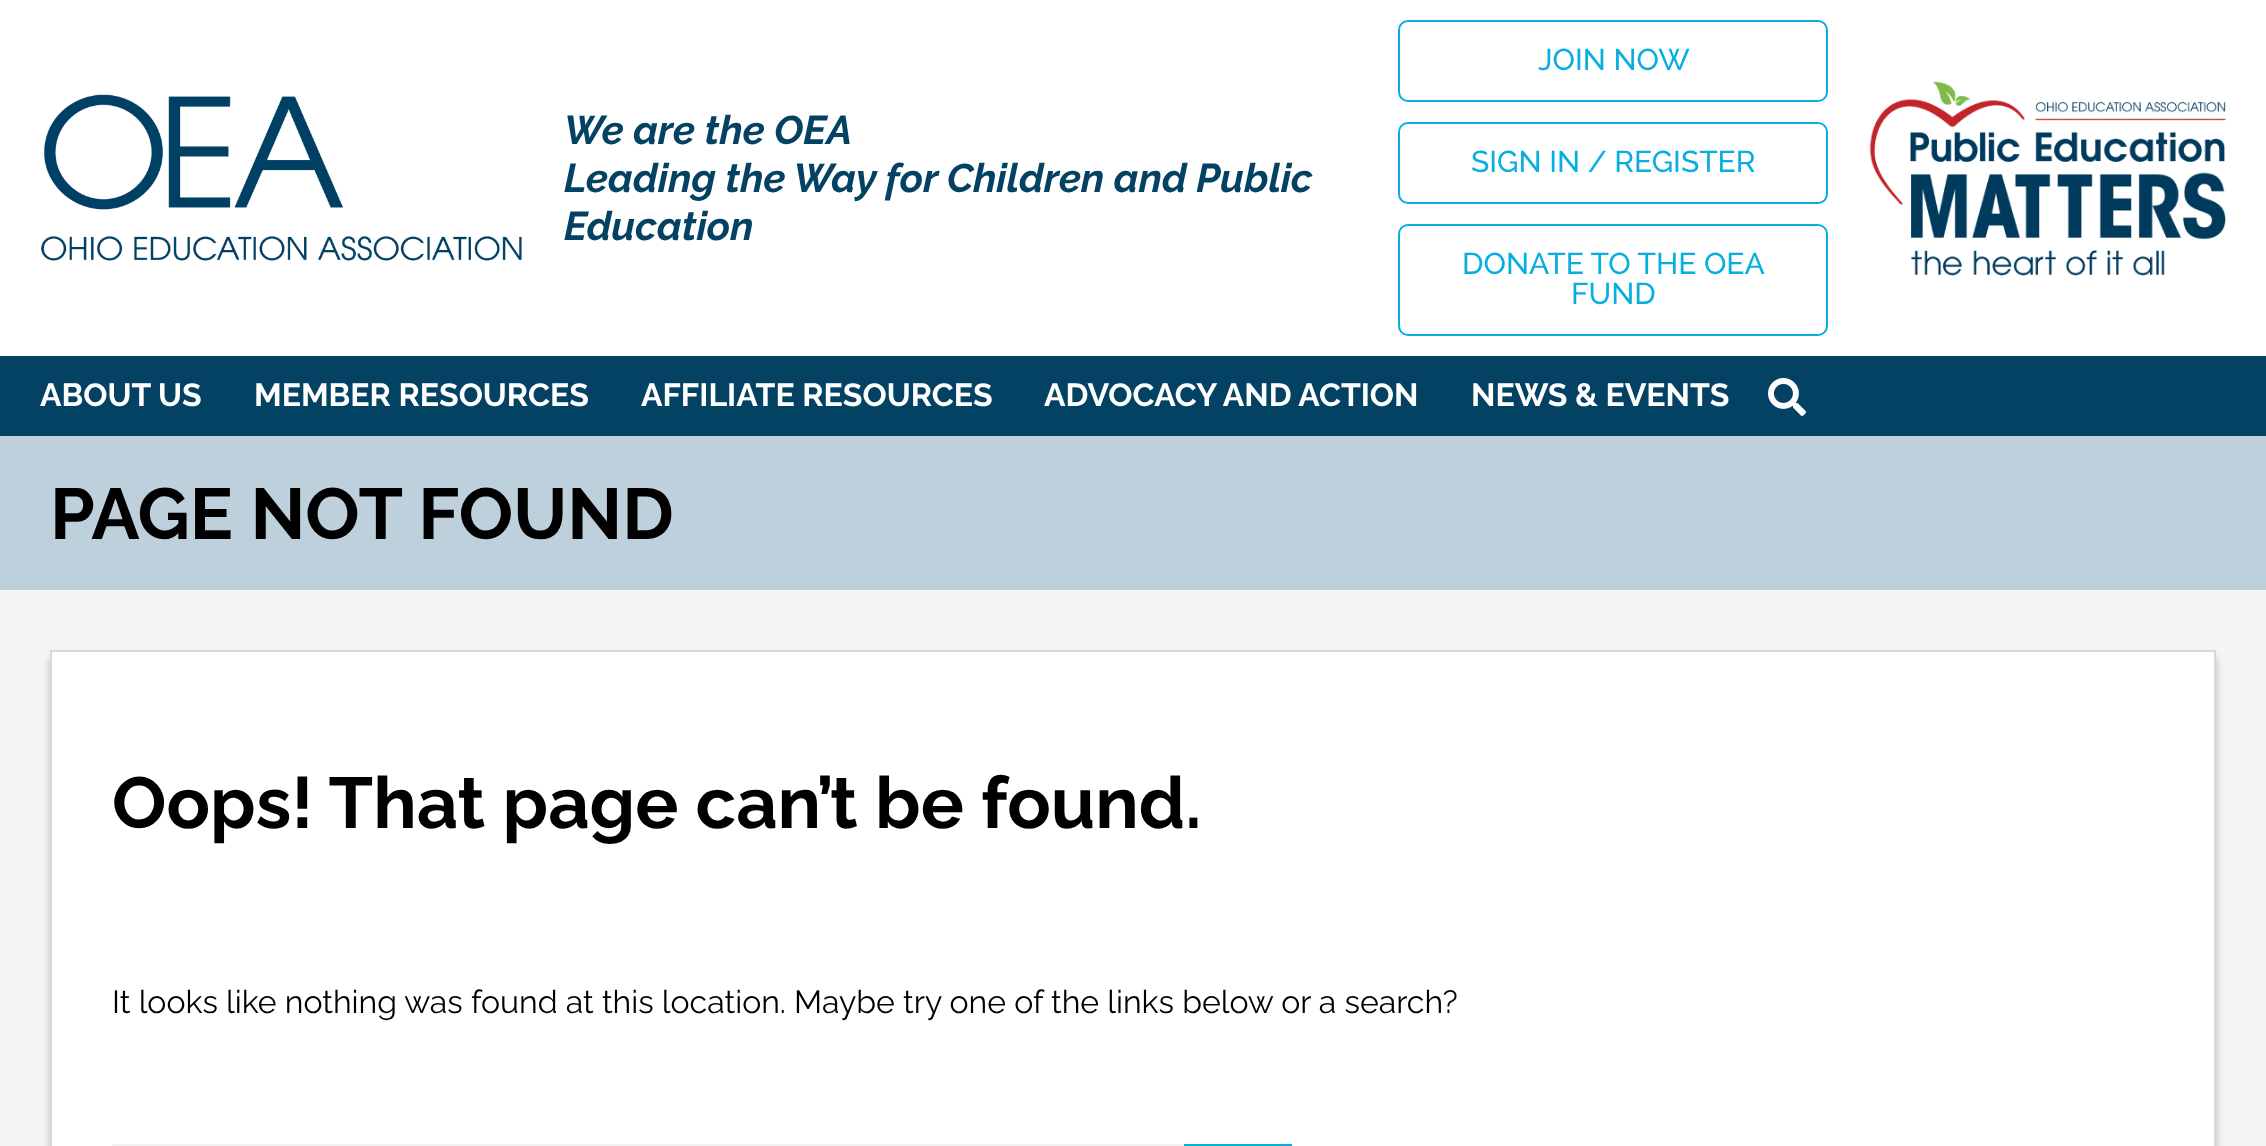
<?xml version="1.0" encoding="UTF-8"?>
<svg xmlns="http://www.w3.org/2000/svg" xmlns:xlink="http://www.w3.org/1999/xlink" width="2266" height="1146">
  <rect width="100%" height="100%" fill="#f5f5f5" />
  <rect width="2266" height="356" fill="#ffffff" />
  <image x="41" y="94" width="481" height="167" xlink:href="image1.png" />
  <rect x="1399" y="21" width="428" height="80" rx="9" fill="none" stroke="#07aedf" stroke-width="2" />
  <rect x="1399" y="123" width="428" height="80" rx="9" fill="none" stroke="#07aedf" stroke-width="2" />
  <rect x="1399" y="225" width="428" height="110" rx="9" fill="none" stroke="#07aedf" stroke-width="2" />
  <image x="1869" y="81" width="357" height="195" xlink:href="image2.png" />
  <rect y="356" width="2266" height="80" fill="#044264" />
  <image x="1768" y="378" width="38" height="38" xlink:href="image3.png" />
  <rect y="436" width="2266" height="154" fill="#bed0dc" />
  <rect x="50" y="658" width="2166" height="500" fill="#000000" fill-opacity="0.25" filter="blur(4px)" />
  <rect x="51" y="651" width="2164" height="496" fill="#ffffff" stroke="#d9d9d9" stroke-width="2" />
  <rect x="112" y="1144" width="1072" height="2" fill="#f1f2f3" />
  <rect x="1184" y="1144" width="108" height="2" fill="#07aedf" />
  <text x="564" y="144" style="font-family: Raleway; font-size: 40px; font-weight: bold; font-style: italic; fill: #044264">We are the OEA</text>
  <text x="564" y="192" style="font-family: Raleway; font-size: 40px; font-weight: bold; font-style: italic; fill: #044264">Leading the Way for Children and Public</text>
  <text x="564" y="240" style="font-family: Raleway; font-size: 40px; font-weight: bold; font-style: italic; fill: #044264">Education</text>
  <text x="1538" y="70" style="font-family: Raleway; font-size: 30px; font-weight: 500; fill: #07aedf">JOIN NOW</text>
  <text x="1471" y="172" style="font-family: Raleway; font-size: 30px; font-weight: 500; fill: #07aedf">SIGN IN / REGISTER</text>
  <text x="1462" y="274" style="font-family: Raleway; font-size: 30px; font-weight: 500; fill: #07aedf">DONATE TO THE OEA</text>
  <text x="1571" y="304" style="font-family: Raleway; font-size: 30px; font-weight: 500; fill: #07aedf">FUND</text>
  <text x="40" y="406" style="font-family: Raleway; font-size: 32px; font-weight: bold; fill: #ffffff">ABOUT US</text>
  <text x="254" y="406" style="font-family: Raleway; font-size: 32px; font-weight: bold; fill: #ffffff">MEMBER RESOURCES</text>
  <text x="641" y="406" style="font-family: Raleway; font-size: 32px; font-weight: bold; fill: #ffffff">AFFILIATE RESOURCES</text>
  <text x="1044" y="406" style="font-family: Raleway; font-size: 32px; font-weight: bold; fill: #ffffff">ADVOCACY AND ACTION</text>
  <text x="1471" y="406" style="font-family: Raleway; font-size: 32px; font-weight: bold; fill: #ffffff">NEWS &amp; EVENTS</text>
  <text x="50" y="539" style="font-family: Raleway; font-size: 72px; font-weight: bold; fill: #000000">PAGE NOT FOUND</text>
  <text x="112" y="828" style="font-family: Raleway; font-size: 72px; font-weight: bold; fill: #000000">Oops! That page can’t be found.</text>
  <text x="112" y="1013" style="font-family: Raleway; font-size: 32px; fill: #000000">It looks like nothing was found at this location. Maybe try one of the links below or a search?</text>
</svg>
